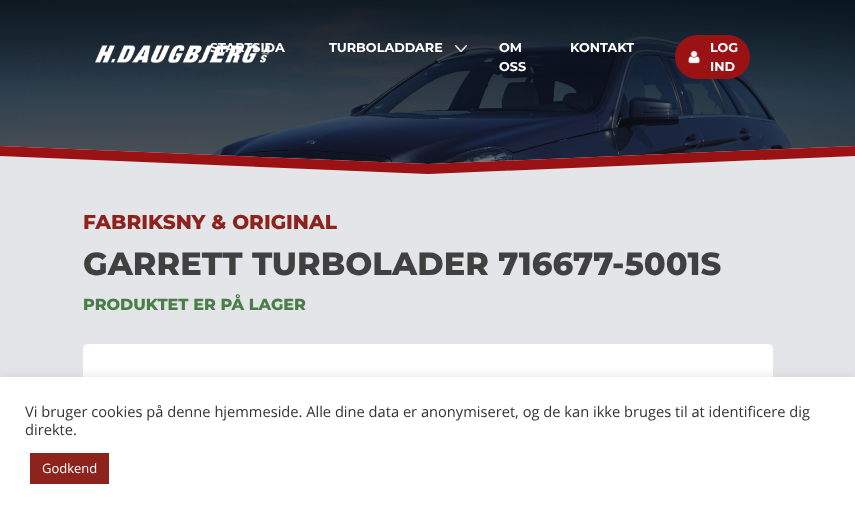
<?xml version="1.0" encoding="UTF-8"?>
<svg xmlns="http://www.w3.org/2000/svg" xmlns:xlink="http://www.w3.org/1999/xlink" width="855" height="514">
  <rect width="100%" height="100%" fill="#e4e5e9" />
  <image x="0" y="0" width="855" height="164" xlink:href="image1.png" />
  <image x="95" y="45" width="175" height="18" xlink:href="image2.png" />
  <image x="455" y="45" width="12" height="7" xlink:href="image3.png" />
  <rect x="675" y="35" width="75" height="44" rx="22" fill="#9b1215" />
  <image x="688" y="50" width="13" height="14" xlink:href="image4.png" />
  <path d="M 0 146 l 428 18 v 50 l -428 -18 z" fill="#e4e5e9" />
  <path d="M 0 146 l 428 18 v 10 l -428 -18 z" fill="#9b1215" />
  <path d="M 428 164 l 427 -18 v 50 l -427 18 z" fill="#e4e5e9" />
  <path d="M 428 164 l 427 -18 v 10 l -427 18 z" fill="#9b1215" />
  <rect x="83" y="344" width="690" height="108" rx="5" fill="#ffffff" />
  <rect y="376" width="855" height="137" fill="#acabab" fill-opacity="0.3" filter="blur(5px)" />
  <rect y="377" width="855" height="137" fill="#ffffff" />
  <rect x="30" y="453" width="79" height="31" fill="#8e231e" />
  <text x="210" y="52" style="font-family: Montserrat; font-size: 12.75px; font-weight: bold; fill: #ffffff">STARTSIDA</text>
  <text x="329" y="52" style="font-family: Montserrat; font-size: 12.75px; font-weight: bold; fill: #ffffff">TURBOLADDARE</text>
  <text x="499" y="52" style="font-family: Montserrat; font-size: 12.75px; font-weight: bold; fill: #ffffff">OM</text>
  <text x="499" y="71" style="font-family: Montserrat; font-size: 12.75px; font-weight: bold; fill: #ffffff">OSS</text>
  <text x="570" y="52" style="font-family: Montserrat; font-size: 12.75px; font-weight: bold; fill: #ffffff">KONTAKT</text>
  <text x="710" y="52" style="font-family: Montserrat; font-size: 12.75px; font-weight: bold; fill: #ffffff">LOG</text>
  <text x="710" y="71" style="font-family: Montserrat; font-size: 12.75px; font-weight: bold; fill: #ffffff">IND</text>
  <text x="83" y="229" style="font-family: Montserrat; font-size: 20px; font-weight: 800; fill: #8e231e">FABRIKSNY &amp; ORIGINAL</text>
  <text x="83" y="275" style="font-family: Montserrat; font-size: 32px; font-weight: 800; fill: #404040">GARRETT TURBOLADER 716677-5001S</text>
  <text x="83" y="310" style="font-family: Montserrat; font-size: 16px; font-weight: 800; fill: #4b7d48">PRODUKTET ER PÅ LAGER</text>
  <text x="25" y="417" style="font-family: Open Sans; font-size: 14.67px; fill: #333333">Vi bruger cookies på denne hjemmeside. Alle dine data er anonymiseret, og de kan ikke bruges til at identificere dig</text>
  <text x="25" y="435" style="font-family: Open Sans; font-size: 14.67px; fill: #333333">direkte.</text>
  <text x="42" y="473" style="font-family: Open Sans; font-size: 13px; fill: #ffffff">Godkend</text>
</svg>
